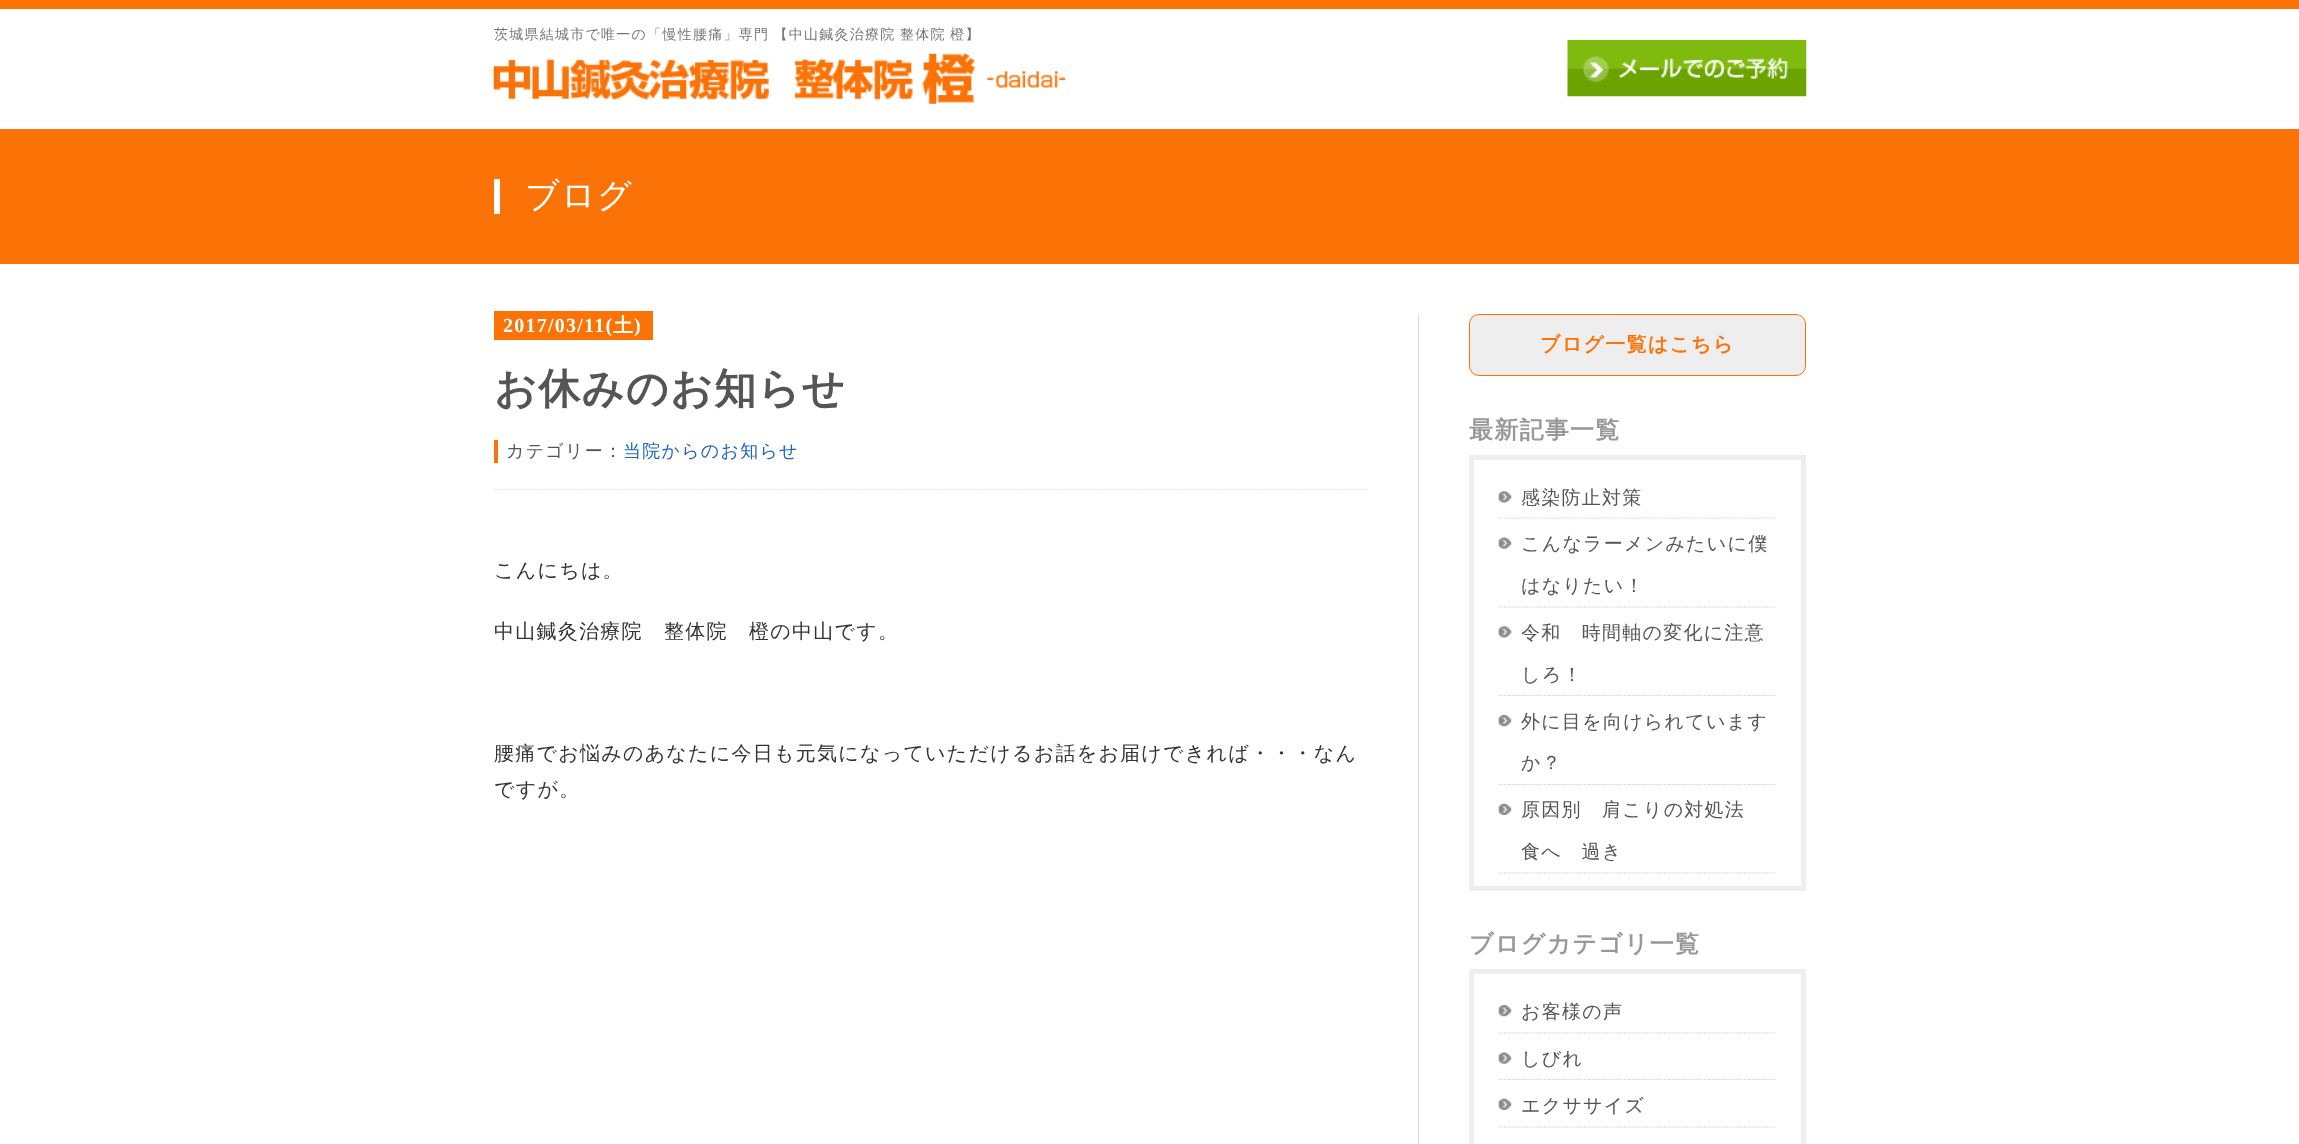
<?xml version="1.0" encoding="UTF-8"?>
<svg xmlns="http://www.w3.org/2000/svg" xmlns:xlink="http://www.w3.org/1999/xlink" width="2299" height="1144">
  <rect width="100%" height="100%" fill="#ffffff" />
  <rect width="2299" height="9" fill="#fb7207" />
  <image x="493" y="53" width="573" height="51" xlink:href="image1.png" />
  <image x="1567" y="40" width="240" height="57" xlink:href="image2.png" />
  <rect y="129" width="2299" height="135" fill="#fb7207" />
  <rect x="494" y="179" width="6" height="35" fill="#ffffff" />
  <rect x="1418" y="314" width="1" height="830" fill="#dddddd" />
  <rect x="494" y="311" width="159" height="29" fill="#fb7207" />
  <rect x="494" y="440" width="4" height="23" fill="#fb7207" />
  <path d="M 494 489.5 h 875" fill="none" stroke="#dddddd" stroke-width="1.2" stroke-dasharray="1.25 1.25" />
  <rect x="1469.5" y="314.5" width="336" height="61" rx="9.5" fill="#eeeeee" stroke="#fb7207" />
  <rect x="1471.5" y="457.5" width="332" height="431" fill="none" stroke="#eeeeee" stroke-width="5" />
  <image x="1498" y="491" width="14" height="12" xlink:href="image3.png" />
  <path d="M 1499 518 h 277" fill="none" stroke="#cccccc" stroke-width="1.2" stroke-dasharray="1.25 1.25" />
  <image x="1498" y="537" width="14" height="12" xlink:href="image4.png" />
  <path d="M 1499 607 h 277" fill="none" stroke="#cccccc" stroke-width="1.2" stroke-dasharray="1.25 1.25" />
  <image x="1498" y="626" width="14" height="12" xlink:href="image3.png" />
  <path d="M 1499 695.5 h 277" fill="none" stroke="#cccccc" stroke-width="1.2" stroke-dasharray="1.25 1.25" />
  <image x="1498" y="715" width="14" height="12" xlink:href="image5.png" />
  <path d="M 1499 784.5 h 277" fill="none" stroke="#cccccc" stroke-width="1.2" stroke-dasharray="1.25 1.25" />
  <image x="1498" y="803" width="14" height="12" xlink:href="image6.png" />
  <path d="M 1499 873 h 277" fill="none" stroke="#cccccc" stroke-width="1.2" stroke-dasharray="1.25 1.25" />
  <rect x="1471.5" y="971.5" width="332" height="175" fill="none" stroke="#eeeeee" stroke-width="5" />
  <image x="1498" y="1005" width="14" height="12" xlink:href="image5.png" />
  <path d="M 1499 1033 h 277" fill="none" stroke="#cccccc" stroke-width="1.2" stroke-dasharray="1.25 1.25" />
  <image x="1498" y="1052" width="14" height="12" xlink:href="image4.png" />
  <path d="M 1499 1079.5 h 277" fill="none" stroke="#cccccc" stroke-width="1.2" stroke-dasharray="1.25 1.25" />
  <image x="1498" y="1098" width="14" height="12" xlink:href="image6.png" />
  <path d="M 1499 1127 h 277" fill="none" stroke="#cccccc" stroke-width="1.2" stroke-dasharray="1.25 1.25" />
  <text x="494" y="39" word-spacing="-1" style="font-family: WenQuanYi Zen Hei; font-size: 14px; font-weight: 500; letter-spacing: 1.25px; fill: #777777">茨城県結城市で唯一の「慢性腰痛」専門 【中山鍼灸治療院 整体院 橙】</text>
  <text x="525" y="207" style="font-family: WenQuanYi Zen Hei; font-size: 34px; font-weight: 500; letter-spacing: 1.25px; fill: #ffffff">ブログ</text>
  <text x="503" y="332" style="font-family: Liberation Serif; font-size: 20px; font-weight: bold; letter-spacing: 1.25px; fill: #ffffff">2017/03/11(</text>
  <text x="613" y="332" style="font-family: WenQuanYi Zen Hei; font-size: 20px; font-weight: bold; letter-spacing: 1.25px; fill: #ffffff">土</text>
  <text x="634" y="332" style="font-family: Liberation Serif; font-size: 20px; font-weight: bold; letter-spacing: 1.25px; fill: #ffffff">)</text>
  <text x="494" y="403" style="font-family: WenQuanYi Zen Hei; font-size: 42px; font-weight: bold; letter-spacing: 1.25px; fill: #555555">お休みのお知らせ</text>
  <text x="506" y="457" style="font-family: WenQuanYi Zen Hei; font-size: 18px; font-weight: 500; letter-spacing: 1.25px; fill: #555555">カテゴリー：</text>
  <text x="623" y="457" style="font-family: WenQuanYi Zen Hei; font-size: 18px; font-weight: 500; letter-spacing: 1.25px; fill: #2266bb">当院からのお知らせ</text>
  <text x="494" y="577" style="font-family: WenQuanYi Zen Hei; font-size: 20px; font-weight: 500; letter-spacing: 1.25px; fill: #333333">こんにちは。</text>
  <text x="494" y="638" style="font-family: WenQuanYi Zen Hei; font-size: 20px; font-weight: 500; letter-spacing: 1.25px; fill: #333333">中山鍼灸治療院　整体院　橙の中山です。</text>
  <text x="494" y="760" style="font-family: WenQuanYi Zen Hei; font-size: 20px; font-weight: 500; letter-spacing: 1.25px; fill: #333333">腰痛でお悩みのあなたに今日も元気になっていただけるお話をお届けできれば・・・なん</text>
  <text x="494" y="796" style="font-family: WenQuanYi Zen Hei; font-size: 20px; font-weight: 500; letter-spacing: 1.25px; fill: #333333">ですが。</text>
  <text x="1540" y="351" style="font-family: WenQuanYi Zen Hei; font-size: 20px; font-weight: bold; letter-spacing: 1.25px; fill: #fb7207">ブログ一覧はこちら</text>
  <text x="1469" y="438" style="font-family: WenQuanYi Zen Hei; font-size: 24px; font-weight: bold; letter-spacing: 1.25px; fill: #999999">最新記事一覧</text>
  <text x="1521" y="504" style="font-family: WenQuanYi Zen Hei; font-size: 19px; font-weight: 500; letter-spacing: 1.25px; fill: #555555">感染防止対策</text>
  <text x="1521" y="550" style="font-family: WenQuanYi Zen Hei; font-size: 19px; font-weight: 500; letter-spacing: 1.25px; fill: #555555">こんなラーメンみたいに僕</text>
  <text x="1521" y="592" style="font-family: WenQuanYi Zen Hei; font-size: 19px; font-weight: 500; letter-spacing: 1.25px; fill: #555555">はなりたい！</text>
  <text x="1521" y="639" style="font-family: WenQuanYi Zen Hei; font-size: 19px; font-weight: 500; letter-spacing: 1.25px; fill: #555555">令和　時間軸の変化に注意</text>
  <text x="1521" y="681" style="font-family: WenQuanYi Zen Hei; font-size: 19px; font-weight: 500; letter-spacing: 1.25px; fill: #555555">しろ！</text>
  <text x="1521" y="728" style="font-family: WenQuanYi Zen Hei; font-size: 19px; font-weight: 500; letter-spacing: 1.25px; fill: #555555">外に目を向けられています</text>
  <text x="1521" y="769" style="font-family: WenQuanYi Zen Hei; font-size: 19px; font-weight: 500; letter-spacing: 1.25px; fill: #555555">か？</text>
  <text x="1521" y="816" style="font-family: WenQuanYi Zen Hei; font-size: 19px; font-weight: 500; letter-spacing: 1.25px; fill: #555555">原因別　肩こりの対処法</text>
  <text x="1521" y="858" style="font-family: WenQuanYi Zen Hei; font-size: 19px; font-weight: 500; letter-spacing: 1.25px; fill: #555555">食べ過ぎ</text>
  <text x="1469" y="952" style="font-family: WenQuanYi Zen Hei; font-size: 24px; font-weight: bold; letter-spacing: 1.25px; fill: #999999">ブログカテゴリ一覧</text>
  <text x="1521" y="1018" style="font-family: WenQuanYi Zen Hei; font-size: 19px; font-weight: 500; letter-spacing: 1.25px; fill: #555555">お客様の声</text>
  <text x="1521" y="1065" style="font-family: WenQuanYi Zen Hei; font-size: 19px; font-weight: 500; letter-spacing: 1.25px; fill: #555555">しびれ</text>
  <text x="1521" y="1112" style="font-family: WenQuanYi Zen Hei; font-size: 19px; font-weight: 500; letter-spacing: 1.25px; fill: #555555">エクササイズ</text>
</svg>
